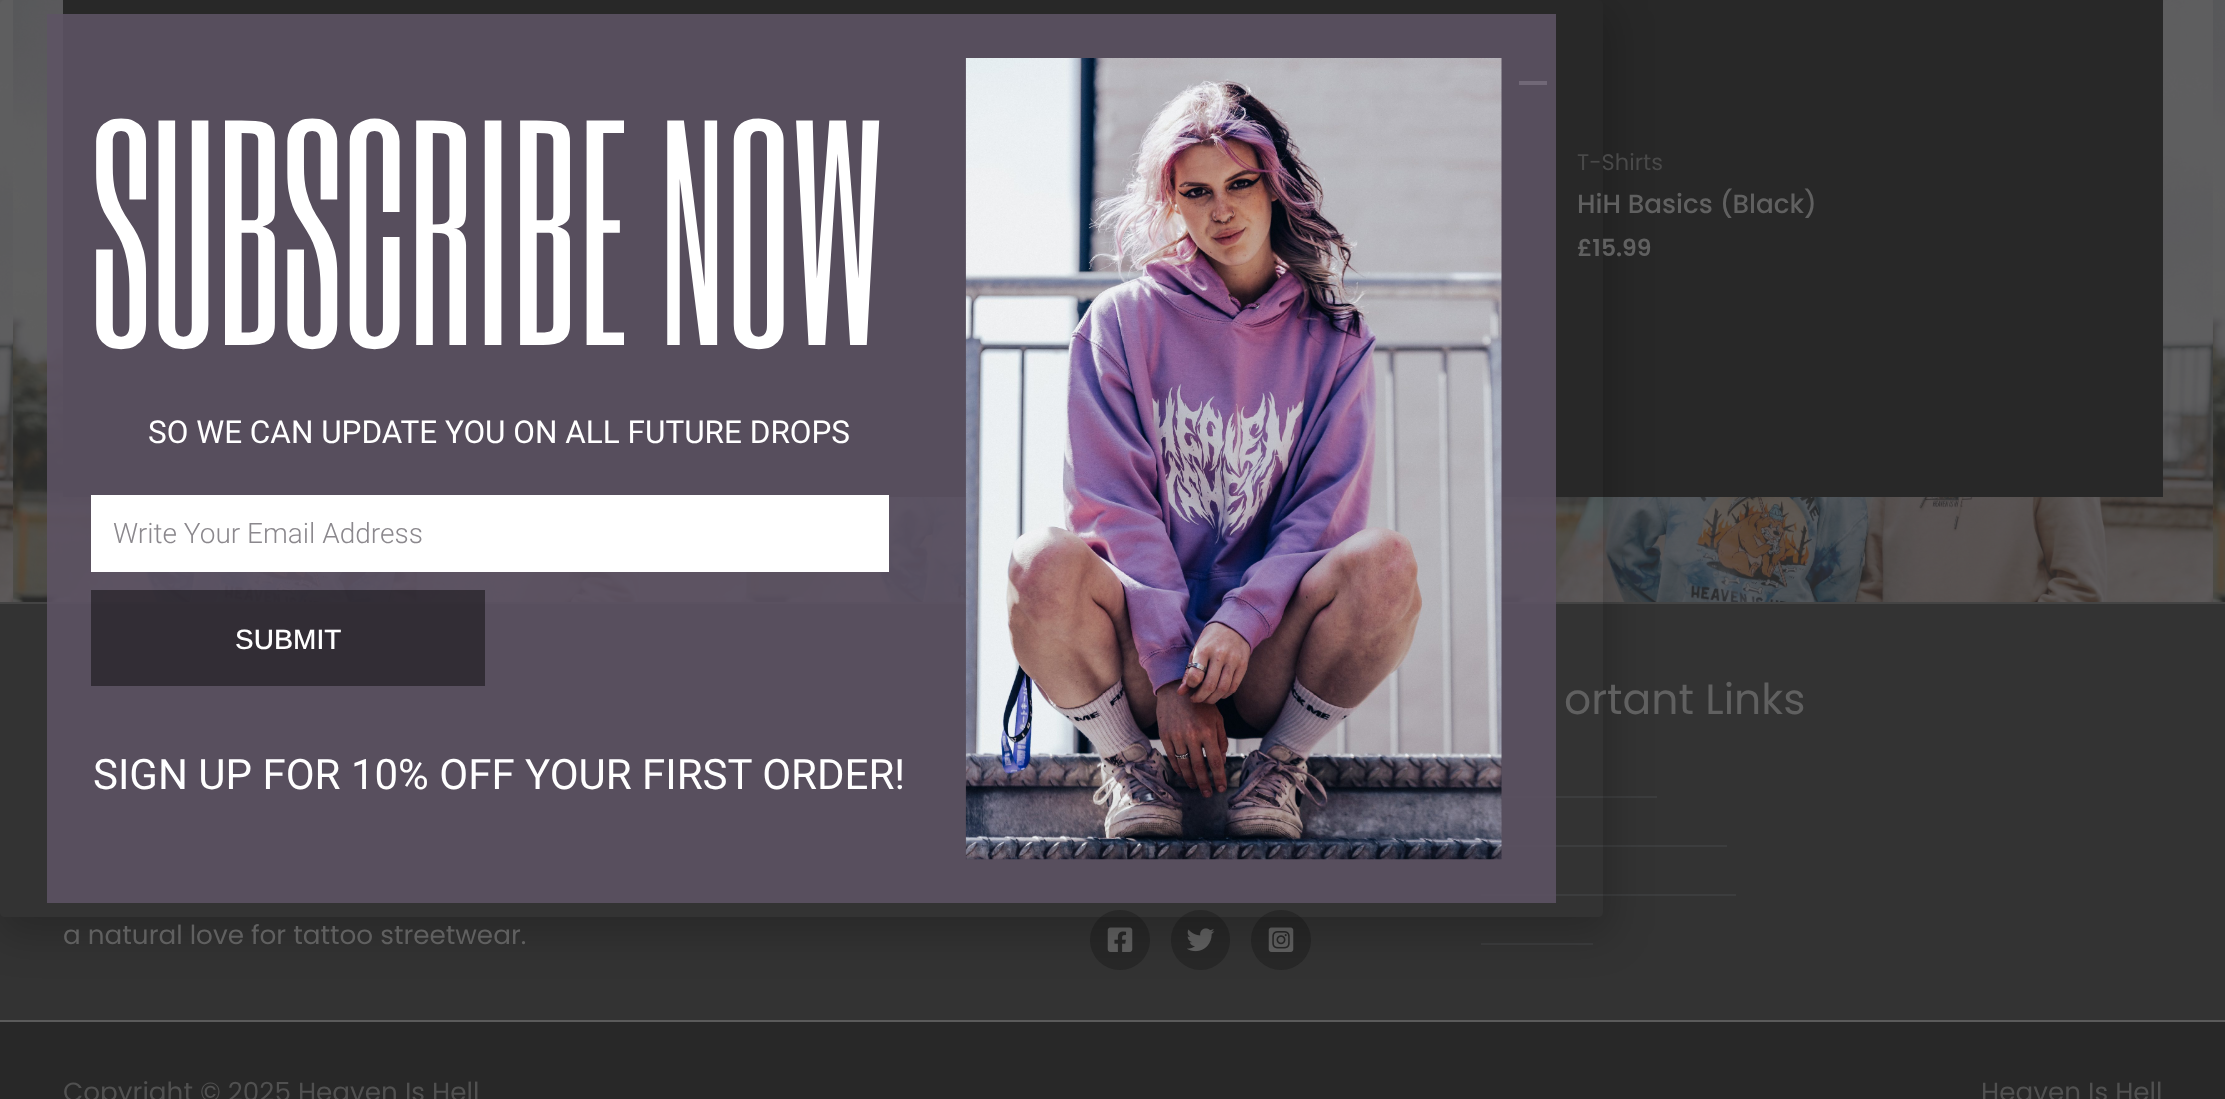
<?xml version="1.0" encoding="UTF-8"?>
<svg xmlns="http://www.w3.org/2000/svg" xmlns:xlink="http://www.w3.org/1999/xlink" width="2225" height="1099">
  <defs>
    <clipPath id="clip1"><path d="M 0 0 h 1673 v 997 h -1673 z m 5 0 h 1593 c 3 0 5 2 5 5 v 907 c 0 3 -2 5 -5 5 h -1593 c -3 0 -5 -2 -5 -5 v -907 c 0 -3 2 -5 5 -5 z" clip-rule="evenodd" /></clipPath>
  </defs>
  <rect width="100%" height="100%" fill="#ffffff" />
  <image x="0" y="0" width="2225" height="602" xlink:href="image1.png" />
  <rect x="63" width="2100" height="497" fill="#282828" />
  <rect y="604" width="2225" height="416" fill="#333333" />
  <rect y="602" width="2225" height="2" fill="#444444" />
  <rect x="1501" y="796" width="156" height="2" fill="#3c3d3e" />
  <rect x="1501" y="845" width="226" height="2" fill="#3c3d3e" />
  <rect x="1481" y="894" width="255" height="2" fill="#3c3d3e" />
  <rect x="1481" y="943" width="112" height="2" fill="#3c3d3e" />
  <circle cx="1120" cy="940" r="30" fill="#282828" />
  <image x="1107" y="927" width="26" height="25" xlink:href="image3.png" />
  <rect x="1171" y="910" width="59" height="60" rx="29.5" fill="#282828" />
  <image x="1187" y="928" width="28" height="24" xlink:href="image4.png" />
  <circle cx="1281" cy="940" r="30" fill="#282828" />
  <image x="1268" y="927" width="26" height="25" xlink:href="image5.png" />
  <g clip-path="url(#clip1)">
    <rect x="-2" y="9" width="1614" height="927" rx="11" fill="#000000" fill-opacity="0.2" filter="blur(20px)" />
  </g>
  <rect x="1519" y="81" width="28" height="4" fill="#ffffff" />
  <rect x="47" y="14" width="1509" height="889" fill="#5d5364" fill-opacity="0.88" />
  <rect x="91" y="495" width="798" height="77" fill="#ffffff" />
  <rect x="91" y="590" width="394" height="96" fill="#000000" fill-opacity="0.43" />
  <image x="965" y="58" width="537" height="802" xlink:href="image2.png" />
  <rect y="1022" width="2225" height="77" fill="#282828" />
  <rect y="1020" width="2225" height="2" fill="#5b5b5b" />
  <text x="92" y="345" style="font-family: Six Caps; font-size: 266px; fill: #ffffff">SUBSCRIBE NOW</text>
  <text x="148" y="443" style="font-family: Roboto; font-size: 31.5px; fill: #ffffff">SO WE CAN UPDATE YOU ON ALL FUTURE DROPS</text>
  <text x="113" y="543" style="font-family: Roboto; font-size: 28px; font-weight: 300; fill: #8b888d">Write Your Email Address</text>
  <text x="235" y="649" style="font-family: Arimo; font-size: 28px; font-weight: 500; fill: #ffffff">SUBMIT</text>
  <text x="93" y="789" style="font-family: Roboto; font-size: 42px; fill: #ffffff">SIGN UP FOR 10% OFF YOUR FIRST ORDER!</text>
  <text x="1577" y="170" style="font-family: Poppins; font-size: 22.5px; fill: #494949">T-Shirts</text>
  <text x="1577" y="213" style="font-family: Poppins; font-size: 26.25px; font-weight: 500; fill: #606060">HiH Basics (Black)</text>
  <text x="1577" y="256" style="font-family: Poppins; font-size: 23.5px; font-weight: 600; fill: #606060">£15.99</text>
  <text x="1564" y="714" style="font-family: Poppins; font-size: 42.5px; fill: #606060">ortant Links</text>
  <text x="63" y="944" style="font-family: Poppins; font-size: 26.25px; fill: #606060">a natural love for tattoo streetwear.</text>
  <text x="63" y="1101" style="font-family: Poppins; font-size: 26.25px; fill: #505050">Copyright © 2025 Heaven Is Hell</text>
  <text x="1981" y="1101" style="font-family: Poppins; font-size: 26.25px; fill: #505050">Heaven Is Hell</text>
</svg>
